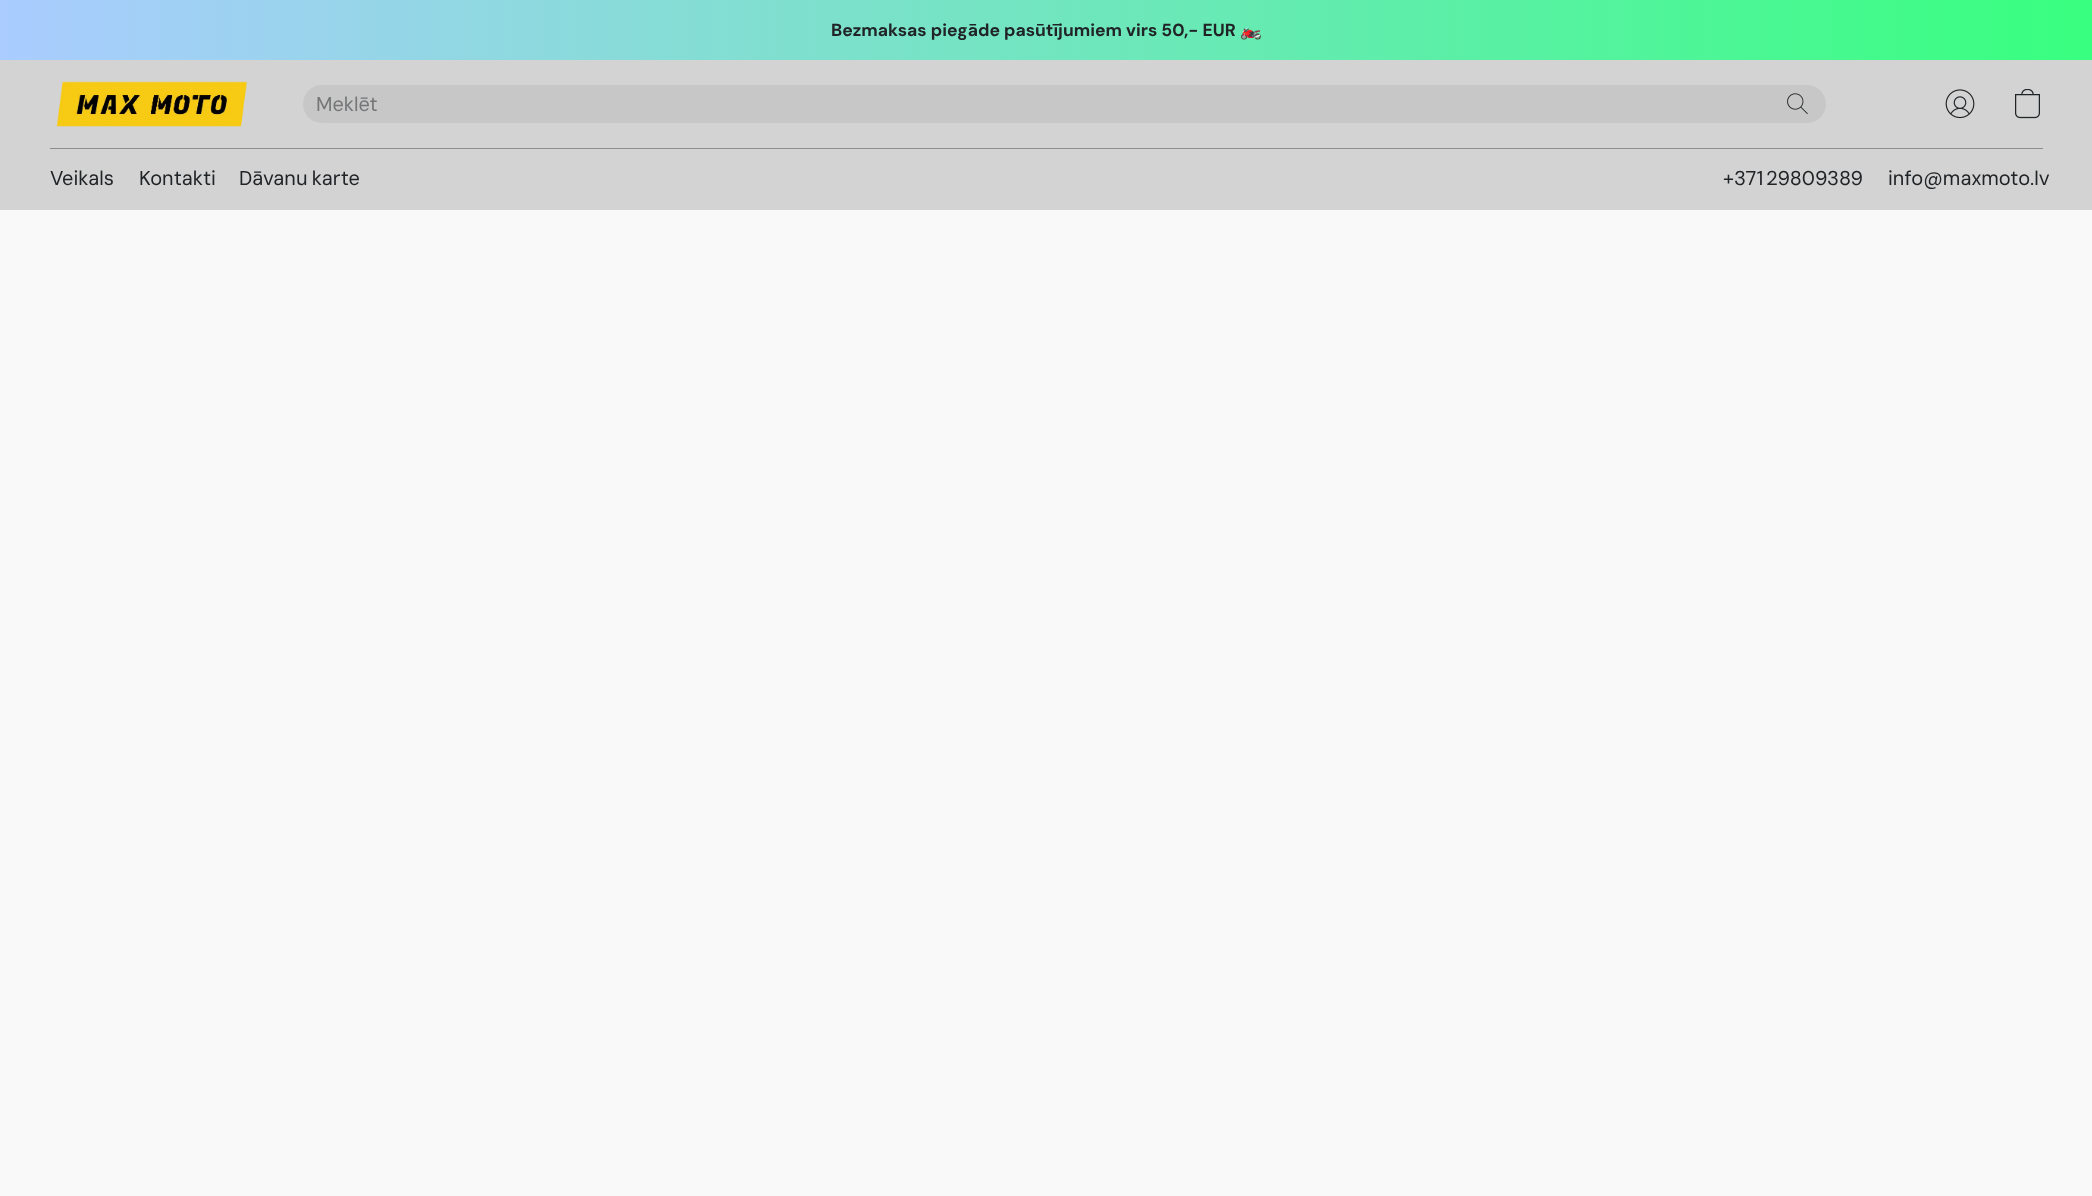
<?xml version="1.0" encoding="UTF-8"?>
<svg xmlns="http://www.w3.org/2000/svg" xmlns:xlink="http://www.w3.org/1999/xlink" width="2092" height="1196">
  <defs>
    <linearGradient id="g1" gradientUnits="userSpaceOnUse" x1="0" y1="30" x2="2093" y2="30"><stop offset="0" stop-color="#aaccff" /><stop offset="1" stop-color="#38ff7f" /></linearGradient>
  </defs>
  <rect width="100%" height="100%" fill="#f9f9f9" />
  <rect width="2092" height="60" fill="url(#g1)" />
  <rect y="60" width="2092" height="150" fill="#d3d3d3" />
  <image x="56" y="81" width="192" height="46" xlink:href="image1.png" />
  <rect x="303" y="85" width="1523" height="38" rx="19" fill="#c7c7c7" />
  <image x="1787" y="93" width="21" height="22" xlink:href="image2.png" />
  <image x="1945" y="89" width="30" height="30" xlink:href="image3.png" />
  <image x="2015" y="89" width="25" height="30" xlink:href="image4.png" />
  <rect x="50" y="148" width="1993" height="1" fill="#8c8d8e" />
  <text x="831" y="36" style="font-family: DM Sans; font-size: 17.5px; font-weight: bold; fill: #212427">Bezmaksas piegāde pasūtījumiem virs 50,- EUR</text>
  <text x="1240" y="36" style="font-family: Noto Color Emoji; font-size: 17.5px; font-weight: bold; fill: #212427">🏍️</text>
  <text x="316" y="111" style="font-family: DM Sans; font-size: 20px; fill: #747677">Meklēt</text>
  <text x="50" y="185" style="font-family: DM Sans; font-size: 20px; fill: #212427">Veikals</text>
  <text x="139" y="185" style="font-family: DM Sans; font-size: 20px; fill: #212427">Kontakti</text>
  <text x="239" y="185" word-spacing="-1" style="font-family: DM Sans; font-size: 20px; fill: #212427">Dāvanu karte</text>
  <text x="1723" y="185" style="font-family: DM Sans; font-size: 20px; fill: #212427">+371 29809389</text>
  <text x="1888" y="185" style="font-family: DM Sans; font-size: 20px; fill: #212427">info@maxmoto.lv</text>
</svg>
